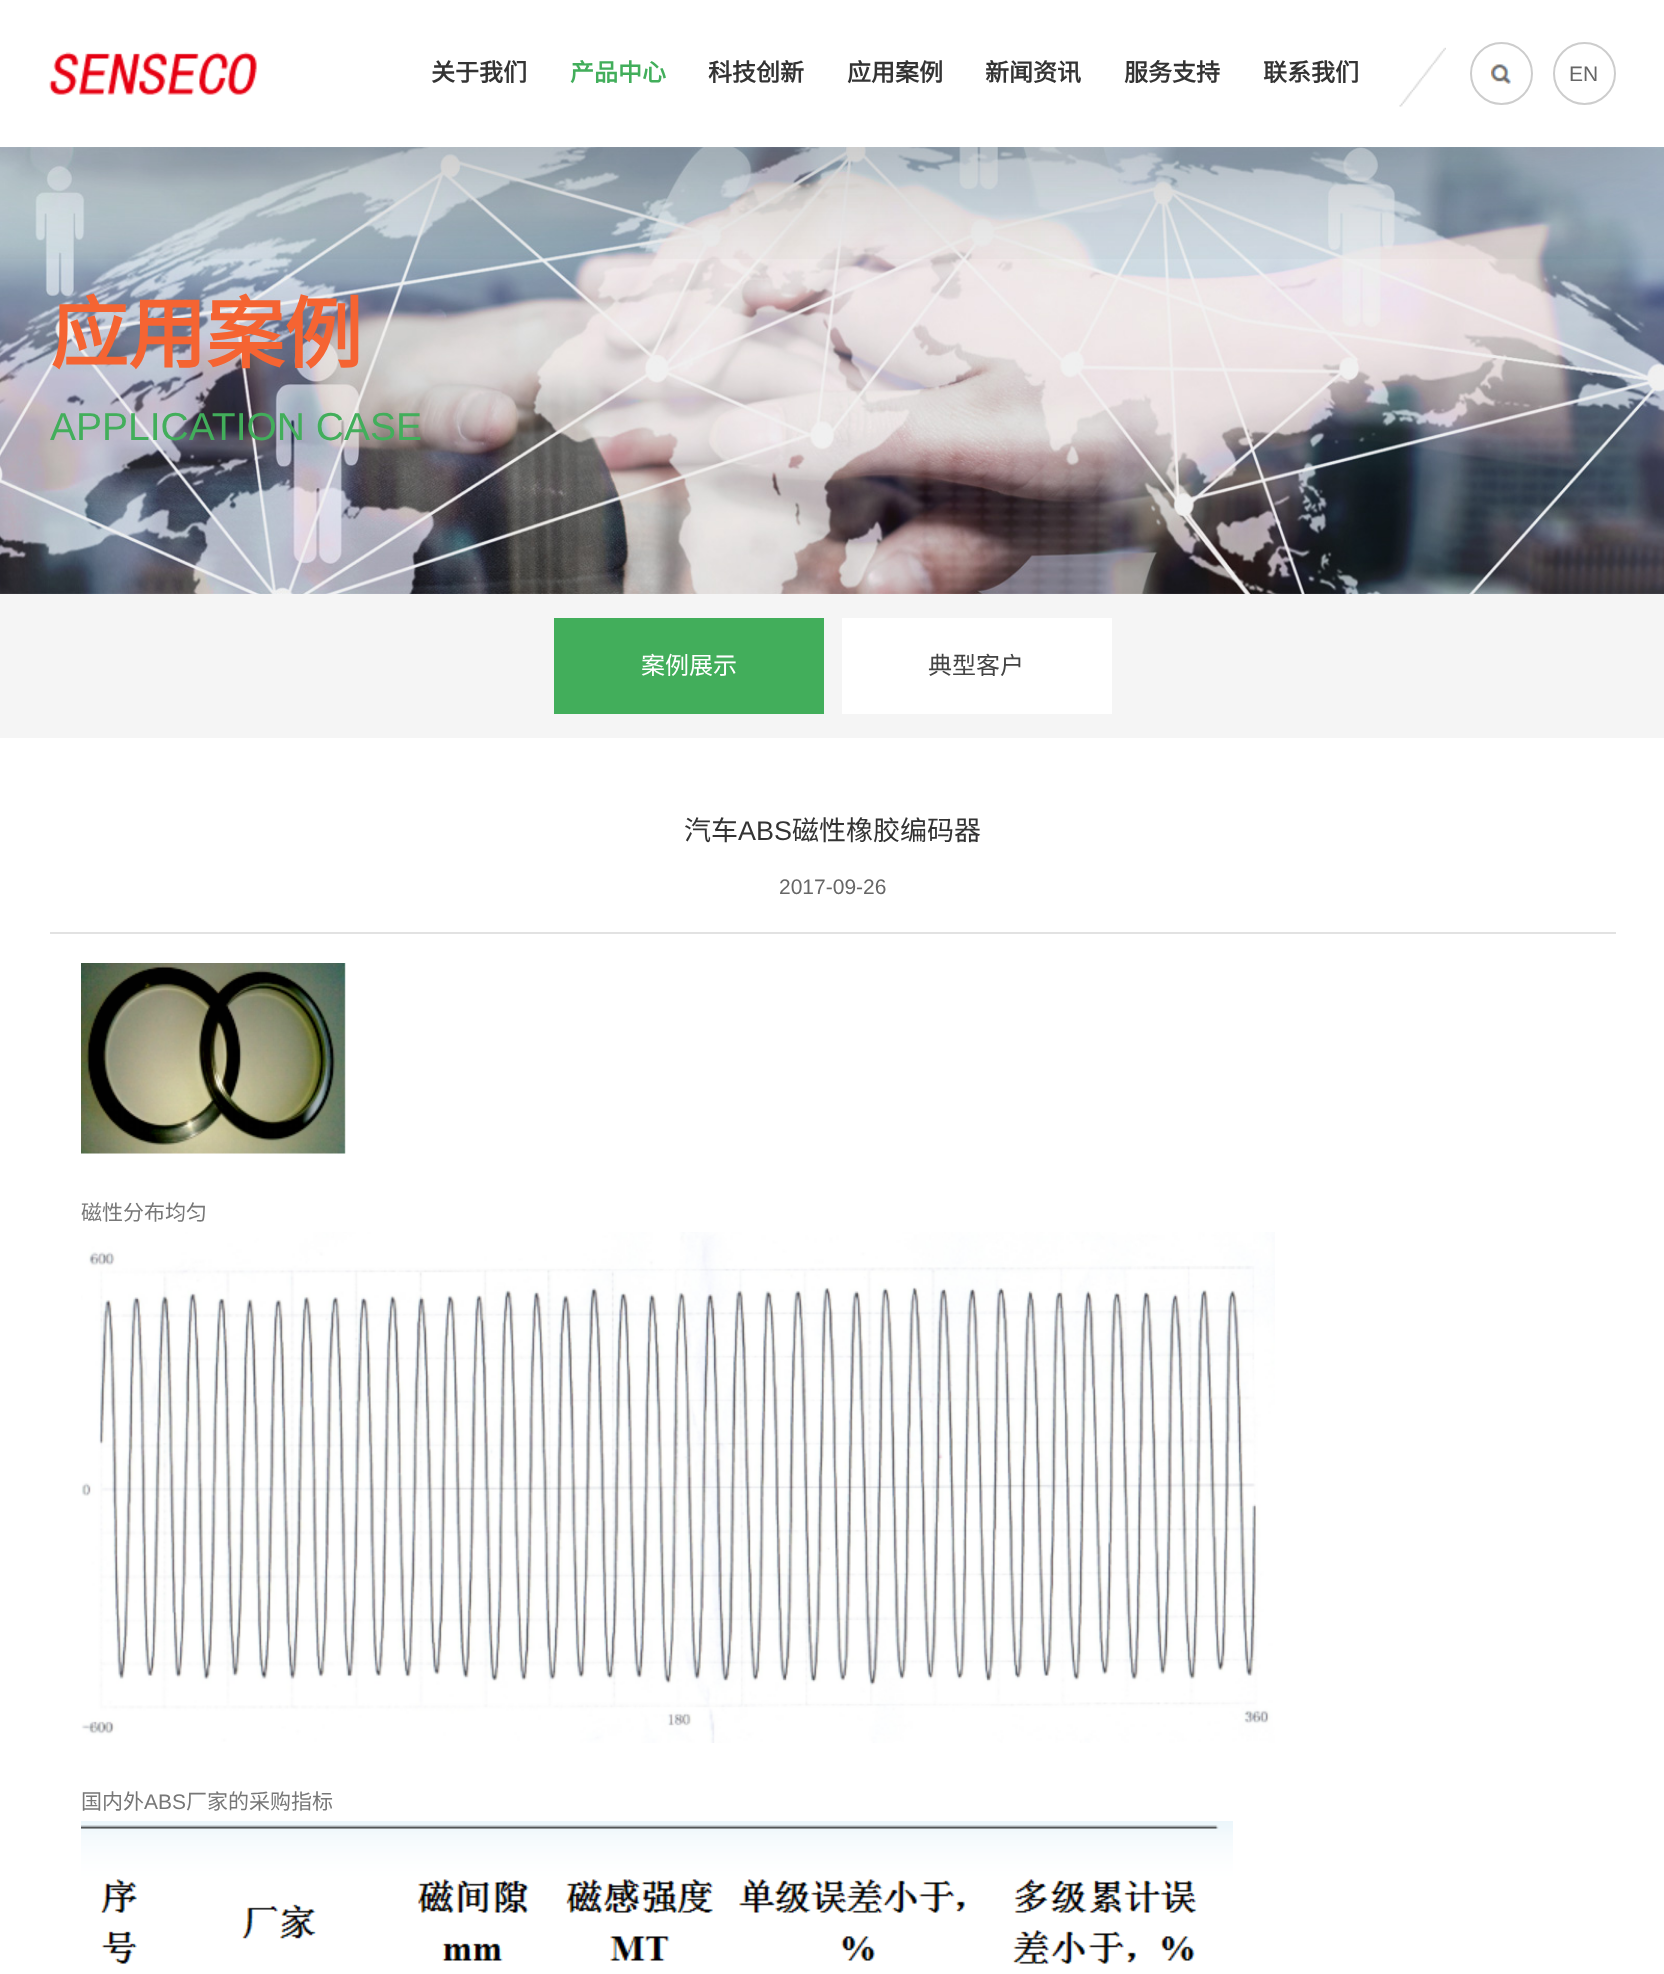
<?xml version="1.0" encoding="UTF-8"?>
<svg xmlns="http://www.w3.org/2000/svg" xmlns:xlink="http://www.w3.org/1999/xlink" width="1664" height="1974">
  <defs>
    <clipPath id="clip1"><rect x="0" y="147" width="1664" height="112" /></clipPath>
  </defs>
  <rect width="100%" height="100%" fill="#ffffff" />
  <image x="0" y="147" width="1664" height="447" xlink:href="image4.png" />
  <g clip-path="url(#clip1)">
    <rect width="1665" height="147" fill="#000000" fill-opacity="0.3" filter="blur(75px)" />
  </g>
  <image x="49" y="52" width="208" height="43" xlink:href="image1.png" />
  <image x="1399" y="47" width="47" height="60" xlink:href="image2.png" />
  <circle cx="1501.5" cy="73.5" r="30.5" fill="none" stroke="#cdcdcd" stroke-width="2" />
  <image x="1491" y="64" width="20" height="20" xlink:href="image3.png" />
  <circle cx="1584.5" cy="73.5" r="30.5" fill="none" stroke="#cdcdcd" stroke-width="2" />
  <rect y="594" width="1664" height="144" fill="#f5f5f5" />
  <rect x="554" y="618" width="270" height="96" fill="#42ae5b" />
  <rect x="842" y="618" width="270" height="96" fill="#ffffff" />
  <rect x="50" y="932" width="1566" height="2" fill="#e2e2e2" />
  <image x="81" y="963" width="265" height="191" xlink:href="image5.png" />
  <image x="81" y="1232" width="1194" height="511" xlink:href="image6.png" />
  <image x="81" y="1821" width="1152" height="143" xlink:href="image7.png" />
  <text x="431" y="81" style="font-family: Noto Sans CJK SC; font-size: 24px; font-weight: bold; fill: #333333">关于我们</text>
  <text x="570" y="81" style="font-family: Noto Sans CJK SC; font-size: 24px; font-weight: bold; fill: #42ae5b">产品中心</text>
  <text x="708" y="81" style="font-family: Noto Sans CJK SC; font-size: 24px; font-weight: bold; fill: #333333">科技创新</text>
  <text x="847" y="81" style="font-family: Noto Sans CJK SC; font-size: 24px; font-weight: bold; fill: #333333">应用案例</text>
  <text x="985" y="81" style="font-family: Noto Sans CJK SC; font-size: 24px; font-weight: bold; fill: #333333">新闻资讯</text>
  <text x="1124" y="81" style="font-family: Noto Sans CJK SC; font-size: 24px; font-weight: bold; fill: #333333">服务支持</text>
  <text x="1263" y="81" style="font-family: Noto Sans CJK SC; font-size: 24px; font-weight: bold; fill: #333333">联系我们</text>
  <text x="1569" y="81" style="font-family: Liberation Sans; font-size: 21px; fill: #666666">EN</text>
  <text x="50" y="362" style="font-family: Noto Sans CJK SC; font-size: 78px; font-weight: bold; fill: #f56432">应用案例</text>
  <text x="50" y="440" style="font-family: Liberation Sans; font-size: 39px; fill: #42ae5b">APPLICATION CASE</text>
  <text x="641" y="674" style="font-family: Noto Sans CJK SC; font-size: 24px; fill: #ffffff">案例展示</text>
  <text x="928" y="674" style="font-family: Noto Sans CJK SC; font-size: 24px; fill: #444444">典型客户</text>
  <text x="684" y="840" style="font-family: Noto Sans CJK SC; font-size: 27px; fill: #333333">汽车</text>
  <text x="738" y="840" style="font-family: Liberation Sans; font-size: 27px; fill: #333333">ABS</text>
  <text x="792" y="840" style="font-family: Noto Sans CJK SC; font-size: 27px; fill: #333333">磁性橡胶编码器</text>
  <text x="779" y="894" style="font-family: Liberation Sans; font-size: 21px; fill: #666666">2017-09-26</text>
  <text x="81" y="1220" style="font-family: Noto Sans CJK SC; font-size: 21px; fill: #777777">磁性分布均匀</text>
  <text x="81" y="1809" style="font-family: Noto Sans CJK SC; font-size: 21px; fill: #777777">国内外</text>
  <text x="144" y="1809" style="font-family: Liberation Sans; font-size: 21px; fill: #777777">ABS</text>
  <text x="186" y="1809" style="font-family: Noto Sans CJK SC; font-size: 21px; fill: #777777">厂家的采购指标</text>
</svg>
